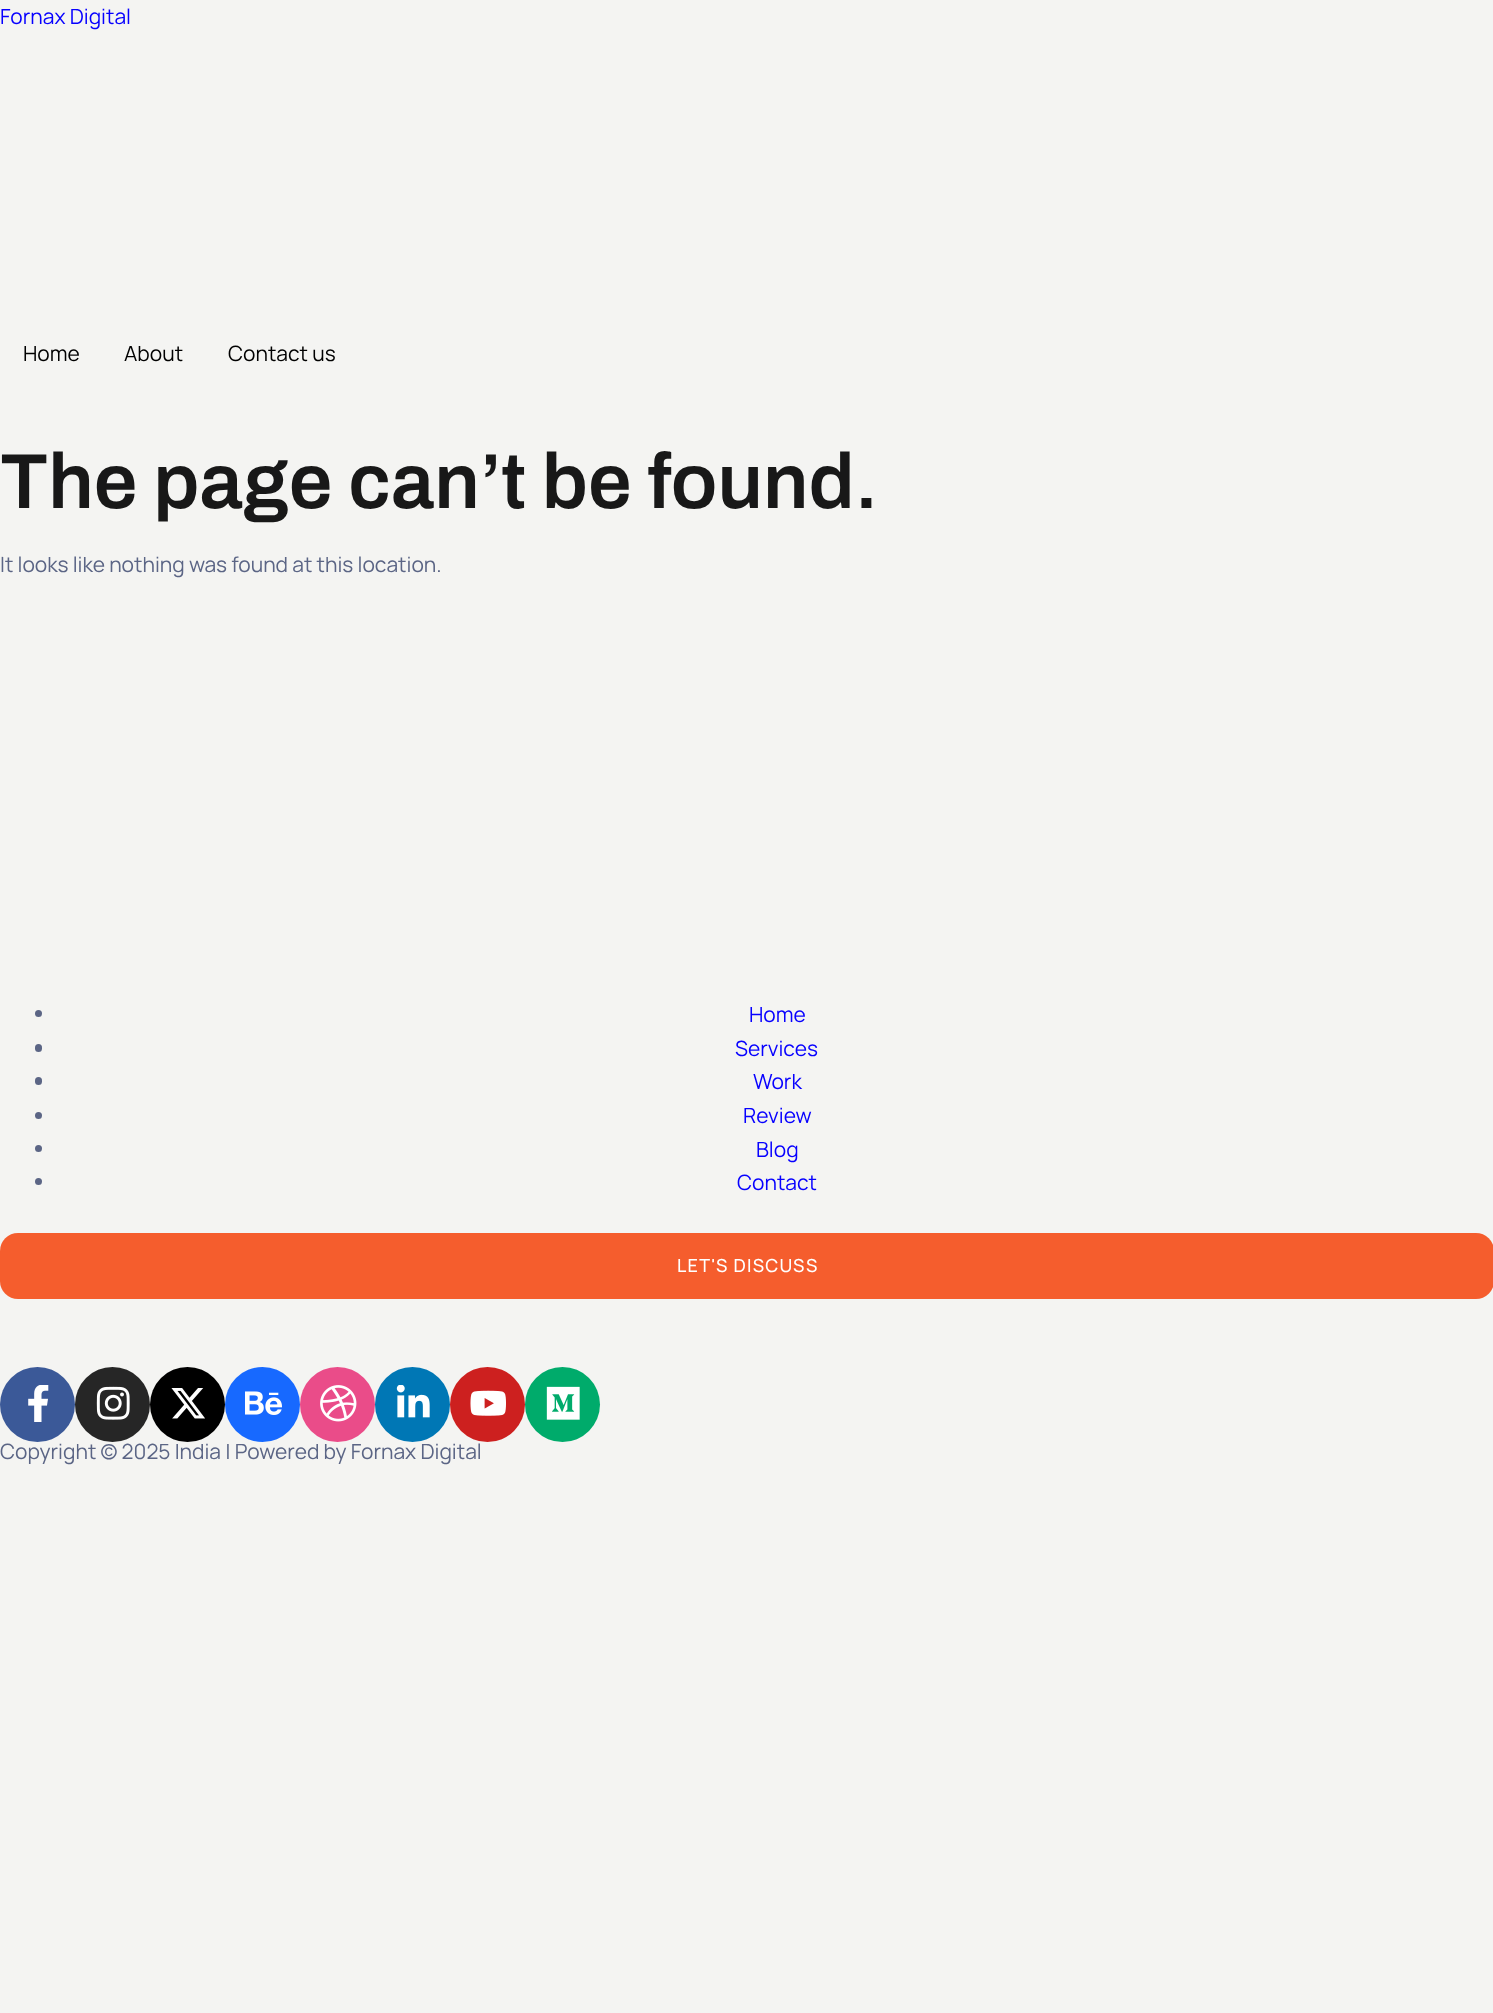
<?xml version="1.0" encoding="UTF-8"?>
<svg xmlns="http://www.w3.org/2000/svg" xmlns:xlink="http://www.w3.org/1999/xlink" width="1493" height="2013">
  <rect width="100%" height="100%" fill="#f4f4f2" />
  <circle cx="38.5" cy="1013.5" r="3.5" fill="#5b6585" />
  <rect x="35" y="1044" width="7" height="8" rx="3.5" fill="#5b6585" />
  <rect x="35" y="1077" width="7" height="8" rx="3.5" fill="#5b6585" />
  <circle cx="38.5" cy="1115.5" r="3.5" fill="#5b6585" />
  <circle cx="38.5" cy="1148.5" r="3.5" fill="#5b6585" />
  <circle cx="38.5" cy="1181.5" r="3.5" fill="#5b6585" />
  <rect y="1233" width="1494" height="66" rx="18" fill="#f55d2d" />
  <circle cx="37.5" cy="1404.5" r="37.5" fill="#3b5998" />
  <image x="28" y="1385" width="21" height="37" xlink:href="image1.png" />
  <circle cx="112.5" cy="1404.5" r="37.5" fill="#262626" />
  <image x="96" y="1386" width="34" height="34" xlink:href="image2.png" />
  <circle cx="187.5" cy="1404.5" r="37.5" fill="#000000" />
  <image x="171" y="1388" width="34" height="31" xlink:href="image3.png" />
  <circle cx="262.5" cy="1404.5" r="37.5" fill="#1769ff" />
  <image x="245" y="1391" width="37" height="24" xlink:href="image4.png" />
  <circle cx="337.5" cy="1404.5" r="37.5" fill="#ea4c89" />
  <image x="320" y="1385" width="37" height="37" xlink:href="image5.png" />
  <circle cx="412.5" cy="1404.5" r="37.5" fill="#0077b5" />
  <image x="396" y="1385" width="34" height="33" xlink:href="image6.png" />
  <circle cx="487.5" cy="1404.5" r="37.5" fill="#cd201f" />
  <image x="470" y="1390" width="36" height="26" xlink:href="image7.png" />
  <circle cx="562.5" cy="1404.5" r="37.5" fill="#00ab6b" />
  <image x="546" y="1386" width="34" height="34" xlink:href="image8.png" />
  <text x="0" y="24" style="font-family: Manrope; font-size: 21px; fill: #0700ff">Fornax Digital</text>
  <text x="23" y="361" style="font-family: Manrope; font-size: 21px; fill: #000000">Home</text>
  <text x="124" y="361" style="font-family: Manrope; font-size: 21px; fill: #000000">About</text>
  <text x="228" y="361" style="font-family: Manrope; font-size: 21px; fill: #000000">Contact us</text>
  <text x="0" y="508" style="font-family: Archivo; font-size: 78px; font-weight: 600; fill: #181818">The page can’t be found.</text>
  <text x="0" y="572" style="font-family: Manrope; font-size: 21px; fill: #5b6585">It looks like nothing was found at this location.</text>
  <text x="749" y="1022" style="font-family: Manrope; font-size: 21px; fill: #0700ff">Home</text>
  <text x="735" y="1056" style="font-family: Manrope; font-size: 21px; fill: #0700ff">Services</text>
  <text x="753" y="1089" style="font-family: Manrope; font-size: 21px; fill: #0700ff">Work</text>
  <text x="743" y="1123" style="font-family: Manrope; font-size: 21px; fill: #0700ff">Review</text>
  <text x="756" y="1157" style="font-family: Manrope; font-size: 21px; fill: #0700ff">Blog</text>
  <text x="737" y="1190" style="font-family: Manrope; font-size: 21px; fill: #0700ff">Contact</text>
  <text x="677" y="1272" style="font-family: Manrope; font-size: 18px; font-weight: 500; letter-spacing: 1.25px; fill: #ffffff">LET'S DISCUSS</text>
  <text x="0" y="1459" style="font-family: Manrope; font-size: 21px; fill: #5b6585">Copyright © 2025 India | Powered by Fornax Digital</text>
</svg>
